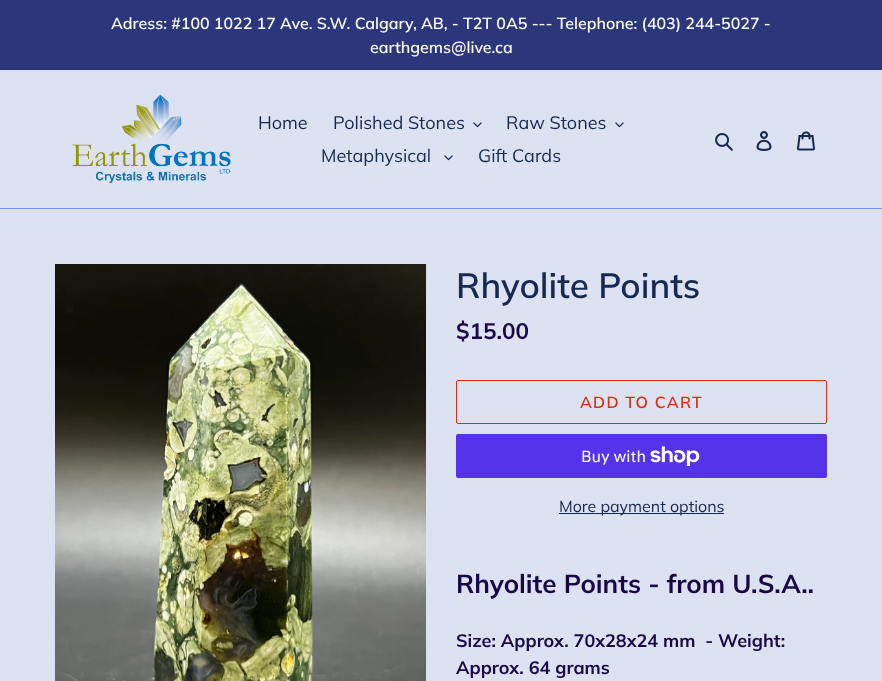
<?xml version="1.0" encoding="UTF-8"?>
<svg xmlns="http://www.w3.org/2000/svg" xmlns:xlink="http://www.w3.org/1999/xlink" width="882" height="681">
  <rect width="100%" height="100%" fill="#dde2f2" />
  <rect width="882" height="70" fill="#2c377b" />
  <rect y="208" width="882" height="1" fill="#7793e1" />
  <image x="72" y="94" width="159" height="90" xlink:href="image1.png" />
  <image x="473" y="122" width="9" height="6" xlink:href="image2.png" />
  <image x="615" y="122" width="9" height="6" xlink:href="image2.png" />
  <image x="444" y="155" width="9" height="6" xlink:href="image2.png" />
  <image x="715" y="133" width="18" height="18" xlink:href="image3.png" />
  <image x="756" y="131" width="16" height="20" xlink:href="image4.png" />
  <image x="797" y="131" width="18" height="20" xlink:href="image5.png" />
  <image x="55" y="264" width="371" height="417" xlink:href="image6.png" />
  <rect x="456.5" y="380.5" width="370" height="43" rx="1.5" fill="none" stroke="#da2f0c" />
  <rect x="456" y="434" width="371" height="44" rx="2" fill="#5433eb" />
  <image x="650" y="446" width="50" height="20" xlink:href="image7.png" />
  <rect x="559" y="513" width="165" height="1" fill="#162950" />
  <text x="111" y="29" style="font-family: Muli; font-size: 16px; font-weight: 600; fill: #ffffff">Adress: #100 1022 17 Ave. S.W. Calgary, AB, - T2T 0A5 --- Telephone: (403) 244-5027 -</text>
  <text x="370" y="53" style="font-family: Muli; font-size: 16px; font-weight: 600; fill: #ffffff">earthgems@live.ca</text>
  <text x="258" y="129" style="font-family: Muli; font-size: 18px; fill: #162950">Home</text>
  <text x="333" y="129" style="font-family: Muli; font-size: 18px; fill: #162950">Polished Stones</text>
  <text x="506" y="129" style="font-family: Muli; font-size: 18px; fill: #162950">Raw Stones</text>
  <text x="321" y="162" style="font-family: Muli; font-size: 18px; fill: #162950">Metaphysical</text>
  <text x="478" y="162" style="font-family: Muli; font-size: 18px; fill: #162950">Gift Cards</text>
  <text x="456" y="298" style="font-family: Muli; font-size: 35px; font-weight: 600; fill: #162950">Rhyolite Points</text>
  <text x="456" y="339" style="font-family: Muli; font-size: 22.5px; font-weight: bold; fill: #1a0846">$15.00</text>
  <text x="580" y="408" style="font-family: Muli; font-size: 16px; font-weight: 600; letter-spacing: 1.25px; fill: #da2f0c">ADD TO CART</text>
  <text x="581" y="462" style="font-family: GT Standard; font-size: 16px; fill: #ffffff">Buy with</text>
  <text x="559" y="512" style="font-family: Muli; font-size: 16px; fill: #162950">More payment options</text>
  <text x="456" y="593" style="font-family: Muli; font-size: 26px; font-weight: bold; fill: #1a0846">Rhyolite Points - from U.S.A..</text>
  <text x="456" y="647" style="font-family: Muli; font-size: 18px; font-weight: bold; fill: #1a0846" xml:space="preserve">Size: Approx. 70x28x24 mm  - Weight:</text>
  <text x="456" y="674" style="font-family: Muli; font-size: 18px; font-weight: bold; fill: #1a0846">Approx. 64 grams</text>
</svg>
